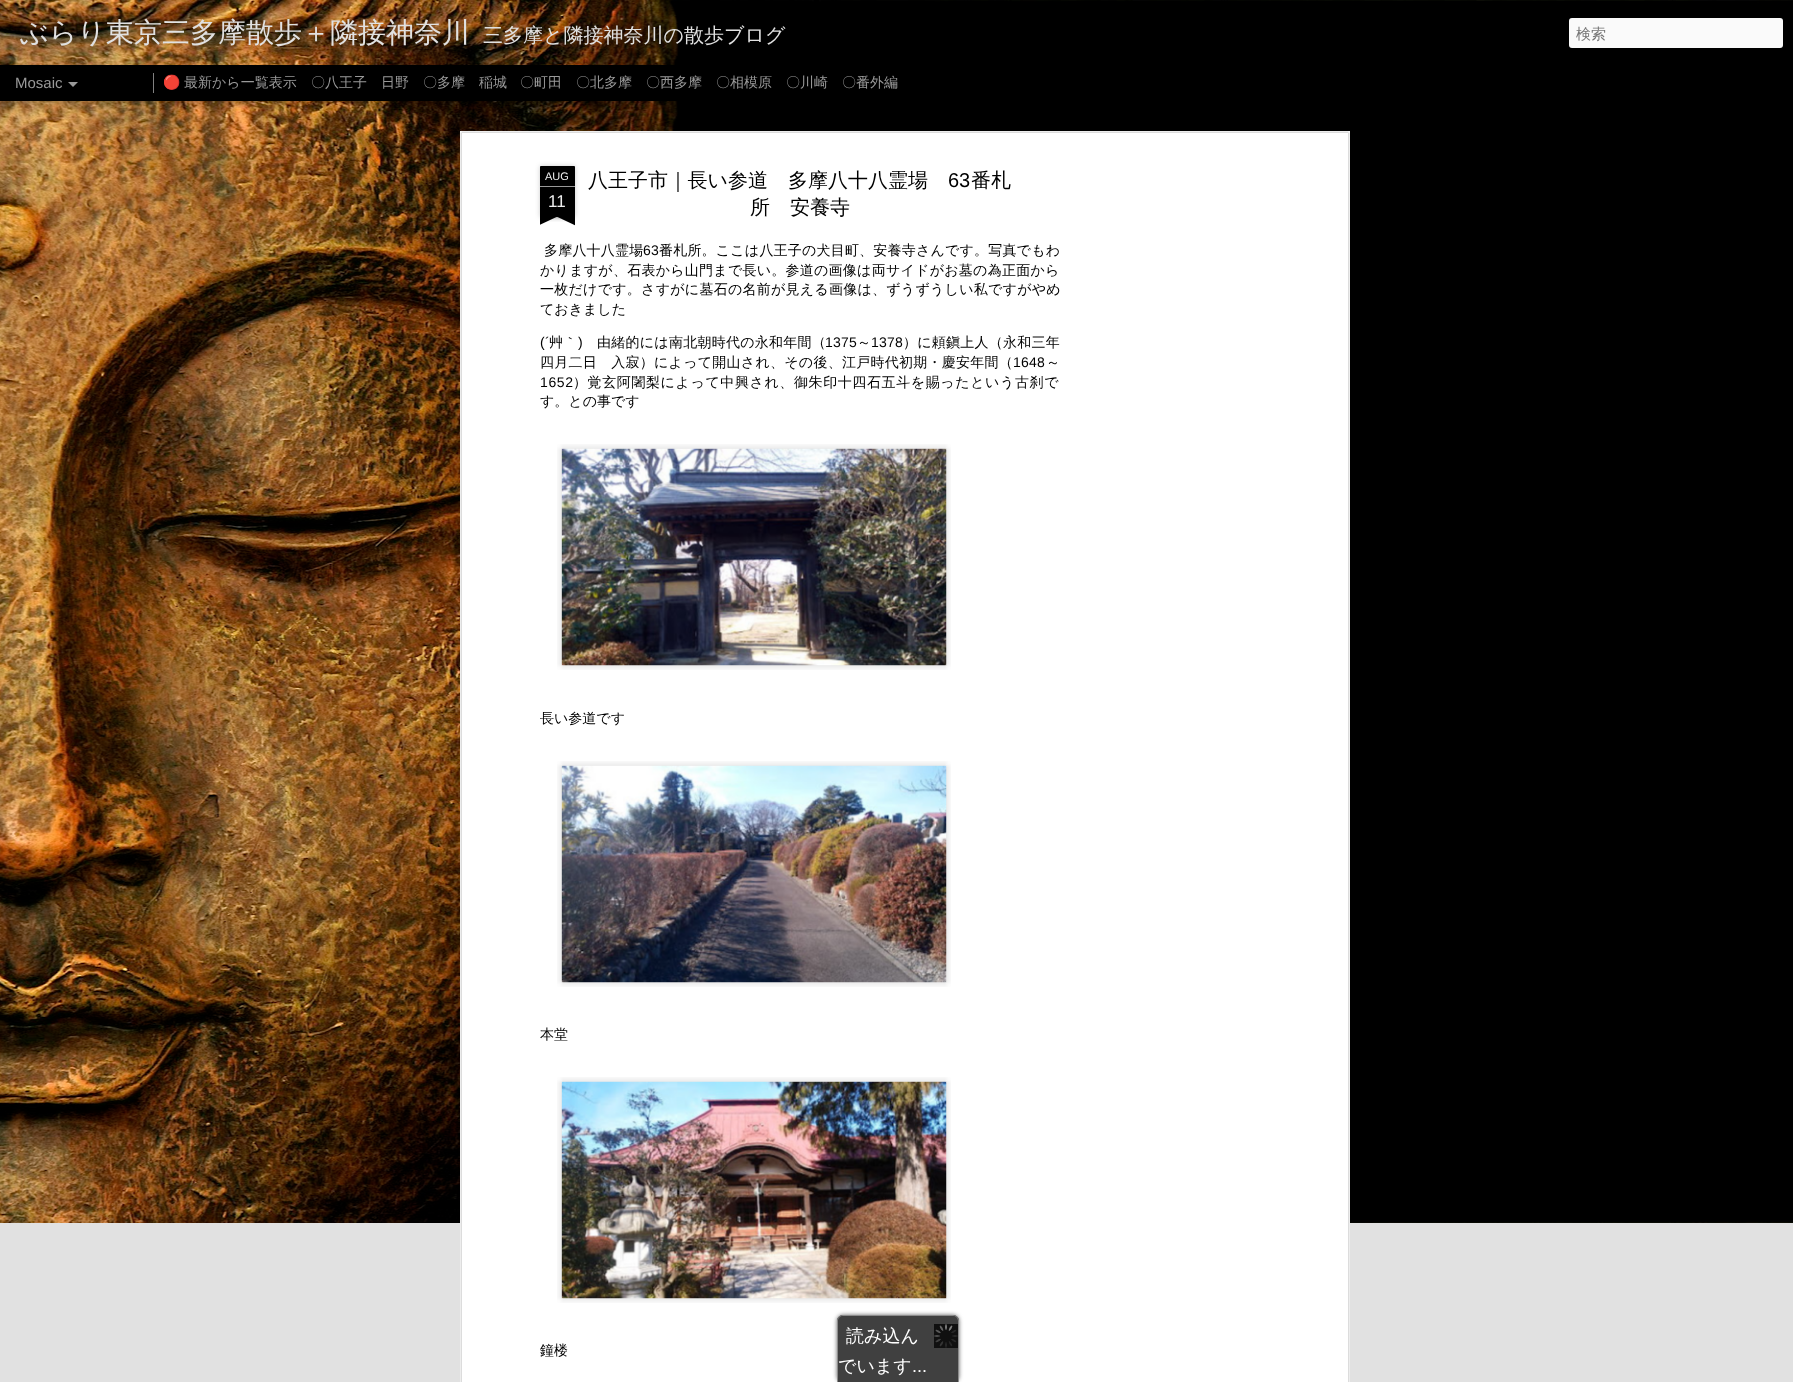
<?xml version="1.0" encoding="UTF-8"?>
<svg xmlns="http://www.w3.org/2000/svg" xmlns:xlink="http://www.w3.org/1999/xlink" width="1793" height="1382">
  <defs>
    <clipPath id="clip1"><rect x="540" y="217" width="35" height="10" /></clipPath>
    <clipPath id="clip2"><rect x="540" y="217" width="35" height="10" /></clipPath>
  </defs>
  <rect width="100%" height="100%" fill="#000000" />
  <image x="0" y="101" width="1793" height="1122" xlink:href="image2.png" />
  <rect y="65" width="1793" height="35" fill="#000000" fill-opacity="0.5" filter="blur(4px)" />
  <image x="0" y="0" width="1793" height="65" xlink:href="image1.png" />
  <rect x="1569" y="18" width="214" height="30" rx="3" fill="#fafafa" />
  <path d="M 68 82 h 10 l -5 5 z" fill="#999999" />
  <rect x="153" y="73" width="1" height="20" fill="#808080" />
  <rect y="1223" width="1793" height="159" fill="#e1e1e1" />
  <rect x="460" y="131" width="890" height="1251" fill="#ffffff" />
  <image x="460" y="131" width="890" height="1251" xlink:href="image3.png" />
  <rect x="540" y="187" width="35" height="30" fill="#000000" fill-opacity="0.2" filter="blur(2.5px)" />
  <rect x="540" y="187" width="35" height="30" fill="#000000" />
  <rect x="540" y="166" width="35" height="21" rx="1" fill="#000000" fill-opacity="0.2" filter="blur(2.5px)" />
  <path d="M 541 166 h 33 c 0.5 0 1 0.5 1 1 v 20 h -35 v -20 c 0 -0.5 0.5 -1 1 -1 z" fill="#000000" />
  <rect x="540" y="186" width="35" height="1" fill="#999999" />
  <g clip-path="url(#clip1)">
    <rect x="531" y="207" width="50" height="10" fill="#000000" fill-opacity="0.2" filter="blur(2.5px)" />
  </g>
  <g clip-path="url(#clip2)">
    <path d="M 531 218 l 45 -21 l 4 9 l -45 21 z" fill="#000000" />
  </g>
  <g clip-path="url(#clip1)">
    <rect x="534" y="207" width="50" height="10" fill="#000000" fill-opacity="0.2" filter="blur(2.5px)" />
  </g>
  <g clip-path="url(#clip2)">
    <path d="M 538 197 l 45 21 l -4 9 l -45 -21 z" fill="#000000" />
  </g>
  <image x="557" y="444" width="394" height="226" xlink:href="image4.png" />
  <image x="561" y="448" width="386" height="218" xlink:href="image5.png" />
  <image x="557" y="761" width="394" height="226" xlink:href="image6.png" />
  <image x="561" y="765" width="386" height="218" xlink:href="image7.png" />
  <image x="557" y="1077" width="394" height="226" xlink:href="image8.png" />
  <image x="561" y="1081" width="386" height="218" xlink:href="image9.png" />
  <rect x="837" y="1315" width="122" height="67" rx="6" fill="#666666" filter="blur(2px)" />
  <path d="M 843 1315 h 110 c 3.5 0 6 2.5 6 6 v 61 h -122 v -61 c 0 -3.5 2.5 -6 6 -6 z" fill="#404040" />
  <path d="M 843 1315 h 110 c 3 0 6 3 6 6 v 61 h -122 v -61 c 0 -3 3 -6 6 -6 z m 0 1 h 110 c 3 0 5 2 5 5 v 61 h -120 v -61 c 0 -3 2 -5 5 -5 z" fill="#8c8c8c" fill-rule="evenodd" />
  <image x="934" y="1324" width="24" height="24" xlink:href="image10.png" />
  <text x="20" y="42" style="font-family: WenQuanYi Zen Hei; font-size: 28px; font-weight: 500; fill: #e1e1e1">ぶらり東京三多摩散歩＋隣接神奈川</text>
  <text x="483" y="42" style="font-family: WenQuanYi Zen Hei; font-size: 20px; font-weight: 500; fill: #e1e1e1">三多摩と隣接神奈川の散歩ブログ</text>
  <text x="1576" y="39" style="font-family: WenQuanYi Zen Hei; font-size: 15px; font-weight: 500; fill: #757575">検索</text>
  <text x="15" y="88" style="font-family: Liberation Sans; font-size: 15px; fill: #999999">Mosaic</text>
  <text x="163" y="87" style="font-family: Noto Color Emoji; font-size: 14px; fill: #999999">🔴</text>
  <text x="184" y="87" style="font-family: WenQuanYi Zen Hei; font-size: 14px; font-weight: 500; fill: #999999">最新から一覧表示</text>
  <text x="311" y="87" style="font-family: WenQuanYi Zen Hei; font-size: 14px; font-weight: 500; fill: #999999">〇八王子　日野</text>
  <text x="423" y="87" style="font-family: WenQuanYi Zen Hei; font-size: 14px; font-weight: 500; fill: #999999">〇多摩　稲城</text>
  <text x="520" y="87" style="font-family: WenQuanYi Zen Hei; font-size: 14px; font-weight: 500; fill: #999999">〇町田</text>
  <text x="576" y="87" style="font-family: WenQuanYi Zen Hei; font-size: 14px; font-weight: 500; fill: #999999">〇北多摩</text>
  <text x="646" y="87" style="font-family: WenQuanYi Zen Hei; font-size: 14px; font-weight: 500; fill: #999999">〇西多摩</text>
  <text x="716" y="87" style="font-family: WenQuanYi Zen Hei; font-size: 14px; font-weight: 500; fill: #999999">〇相模原</text>
  <text x="786" y="87" style="font-family: WenQuanYi Zen Hei; font-size: 14px; font-weight: 500; fill: #999999">〇川崎</text>
  <text x="842" y="87" style="font-family: WenQuanYi Zen Hei; font-size: 14px; font-weight: 500; fill: #999999">〇番外編</text>
  <text x="545" y="180" style="font-family: Liberation Sans; font-size: 11px; fill: #eeeeee">AUG</text>
  <text x="548" y="207" style="font-family: Liberation Sans; font-size: 17px; fill: #eeeeee">11</text>
  <text x="588" y="187" style="font-family: WenQuanYi Zen Hei; font-size: 20px; font-weight: 500; fill: #000000">八王子市｜長い参道　多摩八十八霊場</text>
  <text x="948" y="187" style="font-family: Liberation Sans; font-size: 20px; fill: #000000">63</text>
  <text x="971" y="187" style="font-family: WenQuanYi Zen Hei; font-size: 20px; font-weight: 500; fill: #000000">番札</text>
  <text x="750" y="214" style="font-family: WenQuanYi Zen Hei; font-size: 20px; font-weight: 500; fill: #000000">所　安養寺</text>
  <text x="544" y="255" style="font-family: WenQuanYi Zen Hei; font-size: 14px; font-weight: 500; letter-spacing: 0.2px; fill: #000000">多摩八十八霊場</text>
  <text x="643" y="255" style="font-family: Liberation Sans; font-size: 14px; letter-spacing: 0.2px; fill: #000000">63</text>
  <text x="659" y="255" style="font-family: WenQuanYi Zen Hei; font-size: 14px; font-weight: 500; letter-spacing: 0.2px; fill: #000000">番札所。ここは八王子の犬目町、安養寺さんです。写真でもわ</text>
  <text x="540" y="275" style="font-family: WenQuanYi Zen Hei; font-size: 14px; font-weight: 500; letter-spacing: 0.25px; fill: #000000">かりますが、石表から山門まで長い。参道の画像は両サイドがお墓の為正面から</text>
  <text x="540" y="294" style="font-family: WenQuanYi Zen Hei; font-size: 14px; font-weight: 500; letter-spacing: 0.25px; fill: #000000">一枚だけです。さすがに墓石の名前が見える画像は、ずうずうしい私ですがやめ</text>
  <text x="540" y="314" style="font-family: WenQuanYi Zen Hei; font-size: 14px; font-weight: 500; fill: #000000">ておきました</text>
  <text x="540" y="347" style="font-family: Liberation Sans; font-size: 14px; letter-spacing: 0.25px; fill: #000000">(´</text>
  <text x="549" y="347" style="font-family: WenQuanYi Zen Hei; font-size: 14px; font-weight: 500; letter-spacing: 0.25px; fill: #000000">艸｀</text>
  <text x="578" y="347" style="font-family: Liberation Sans; font-size: 14px; letter-spacing: 0.25px; fill: #000000">)</text>
  <text x="597" y="347" style="font-family: WenQuanYi Zen Hei; font-size: 14px; font-weight: 500; letter-spacing: 0.25px; fill: #000000">由緒的には南北朝時代の永和年間（</text>
  <text x="825" y="347" style="font-family: Liberation Sans; font-size: 14px; letter-spacing: 0.25px; fill: #000000">1375</text>
  <text x="857" y="347" style="font-family: WenQuanYi Zen Hei; font-size: 14px; font-weight: 500; letter-spacing: 0.25px; fill: #000000">～</text>
  <text x="871" y="347" style="font-family: Liberation Sans; font-size: 14px; letter-spacing: 0.25px; fill: #000000">1378</text>
  <text x="903" y="347" style="font-family: WenQuanYi Zen Hei; font-size: 14px; font-weight: 500; letter-spacing: 0.25px; fill: #000000">）に頼鎭上人（永和三年</text>
  <text x="540" y="367" style="font-family: WenQuanYi Zen Hei; font-size: 14px; font-weight: 500; letter-spacing: 0.25px; fill: #000000">四月二日　入寂）によって開山され、その後、江戸時代初期・慶安年間（</text>
  <text x="1013" y="367" style="font-family: Liberation Sans; font-size: 14px; letter-spacing: 0.25px; fill: #000000">1648</text>
  <text x="1046" y="367" style="font-family: WenQuanYi Zen Hei; font-size: 14px; font-weight: 500; letter-spacing: 0.25px; fill: #000000">～</text>
  <text x="540" y="387" style="font-family: Liberation Sans; font-size: 14px; letter-spacing: 0.6px; fill: #000000">1652</text>
  <text x="573" y="387" style="font-family: WenQuanYi Zen Hei; font-size: 14px; font-weight: 500; letter-spacing: 0.6px; fill: #000000">）覚玄阿闍梨によって中興され、御朱印十四石五斗を賜ったという古刹で</text>
  <text x="540" y="406" style="font-family: WenQuanYi Zen Hei; font-size: 14px; font-weight: 500; fill: #000000">す。との事です</text>
  <text x="540" y="723" style="font-family: WenQuanYi Zen Hei; font-size: 14px; font-weight: 500; fill: #000000">長い参道です</text>
  <text x="540" y="1039" style="font-family: WenQuanYi Zen Hei; font-size: 14px; font-weight: 500; fill: #000000">本堂</text>
  <text x="540" y="1355" style="font-family: WenQuanYi Zen Hei; font-size: 14px; font-weight: 500; fill: #000000">鐘楼</text>
  <text x="846" y="1342" style="font-family: WenQuanYi Zen Hei; font-size: 18px; font-weight: 500; fill: #ffffff">読み込ん</text>
  <text x="838" y="1372" style="font-family: WenQuanYi Zen Hei; font-size: 18px; font-weight: 500; fill: #ffffff">でいます</text>
  <text x="912" y="1372" style="font-family: Liberation Sans; font-size: 18px; fill: #ffffff">...</text>
</svg>
